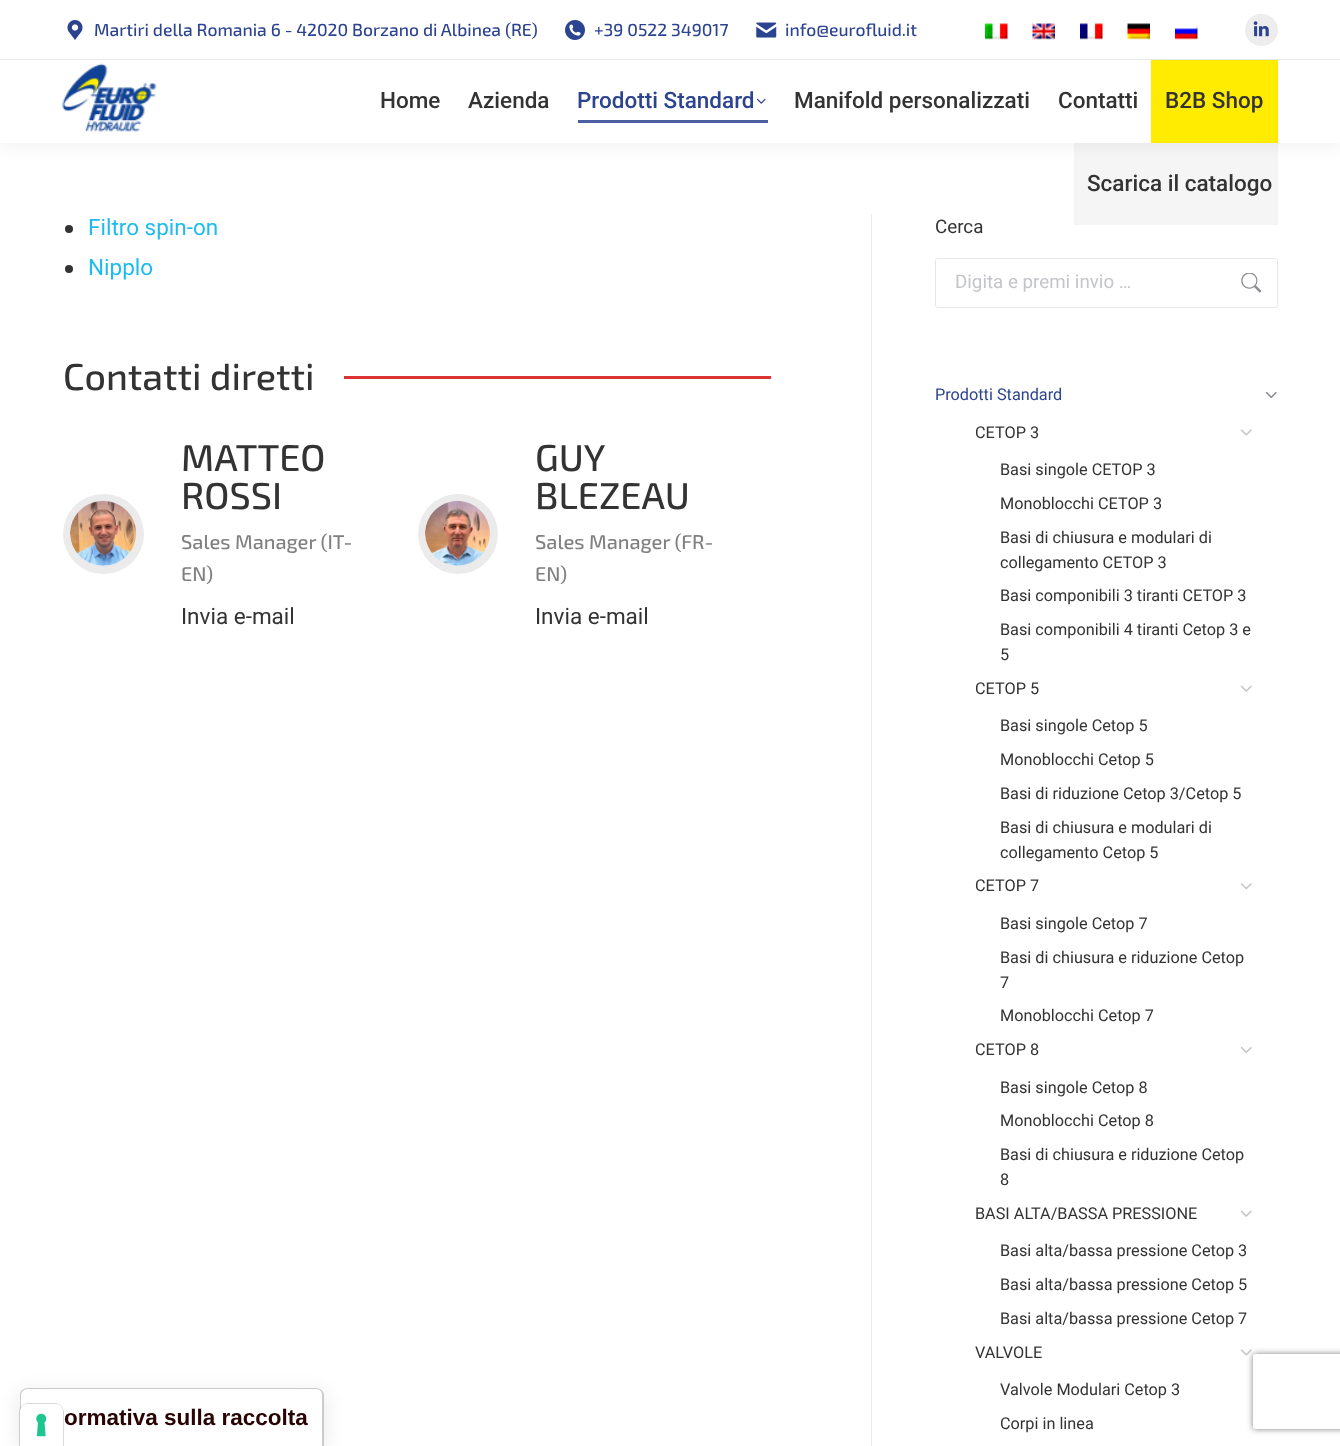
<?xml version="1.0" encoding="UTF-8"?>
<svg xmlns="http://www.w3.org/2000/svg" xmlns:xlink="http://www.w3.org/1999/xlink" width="1340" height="1446">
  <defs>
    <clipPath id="clip1"><path d="M 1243 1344 h 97 v 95 h -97 z m 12.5 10 h 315 c 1.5 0 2.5 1 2.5 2.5 v 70 c 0 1.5 -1 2.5 -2.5 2.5 h -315 c -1.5 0 -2.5 -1 -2.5 -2.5 v -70 c 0 -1.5 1 -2.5 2.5 -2.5 z" clip-rule="evenodd" /></clipPath>
  </defs>
  <rect width="100%" height="100%" fill="#ffffff" />
  <rect x="20" y="1393" width="304" height="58" rx="8" fill="#000000" fill-opacity="0.1" filter="blur(10px)" />
  <path d="M 28 1388 h 288 c 4.5 0 8 3.5 8 8 v 50 h -304 v -50 c 0 -4.5 3.5 -8 8 -8 z" fill="#ffffff" />
  <path d="M 28 1388 h 288 c 4 0 8 3 8 7 v 51 h -304 v -51 c 0 -4 3 -7 8 -7 z m 0 1 h 288 c 4 0 6 3 6 6 v 51 h -301 v -51 c 0 -3 3 -6 7 -6 z" fill="#cccccc" fill-rule="evenodd" />
  <path d="M 28 1403.5 h 27 c 4.5 0 8.5 4 8.5 8.5 v 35.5 h -44 v -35.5 c 0 -4.5 4 -8.5 8.5 -8.5 z" fill="none" stroke="#000000" stroke-opacity="0.15" />
  <path d="M 28 1404 h 27 c 4.5 0 8 3.5 8 8 v 34 h -43 v -34 c 0 -4.5 3.5 -8 8 -8 z" fill="#ffffff" />
  <image x="36" y="1413" width="11" height="24" xlink:href="image1.png" />
  <rect x="-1" y="-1" width="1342" height="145" fill="#000000" fill-opacity="0.07" filter="blur(9.5px)" />
  <rect width="1340" height="143" fill="#ffffff" />
  <image x="67" y="20" width="16" height="20" xlink:href="image2.png" />
  <image x="565" y="20" width="20" height="20" xlink:href="image3.png" />
  <image x="756" y="22" width="21" height="16" xlink:href="image4.png" />
  <image x="985" y="23" width="23" height="17" xlink:href="image5.png" />
  <image x="1032" y="23" width="23" height="17" xlink:href="image6.png" />
  <image x="1080" y="23" width="23" height="17" xlink:href="image7.png" />
  <image x="1127" y="23" width="23" height="17" xlink:href="image8.png" />
  <image x="1175" y="26" width="23" height="14" xlink:href="image9.png" />
  <rect x="1245" y="14" width="33" height="32" rx="16" fill="#ededed" />
  <image x="1253" y="21" width="16" height="16" xlink:href="image10.png" />
  <rect y="59" width="1340" height="1" fill="#e9e9e9" />
  <image x="62" y="63" width="95" height="69" xlink:href="image11.png" />
  <image x="756" y="98" width="10" height="6" xlink:href="image12.png" />
  <rect x="578" y="120" width="190" height="3" fill="#4c5fa0" />
  <rect x="1151" y="60" width="127" height="83" fill="#ffec00" />
  <rect x="1074" y="143" width="204" height="82" fill="#000000" fill-opacity="0.04" />
  <circle cx="69" cy="229" r="4" fill="#333333" />
  <circle cx="69" cy="269" r="4" fill="#333333" />
  <rect x="344" y="376" width="427" height="3" fill="#dd3333" />
  <rect x="63" y="494" width="81" height="80" rx="40" fill="#ebebeb" />
  <image x="70" y="500" width="67" height="66" xlink:href="image13.png" />
  <circle cx="458" cy="534" r="40" fill="#ebebeb" />
  <image x="425" y="500" width="65" height="66" xlink:href="image14.png" />
  <rect x="871" y="214" width="1" height="1232" fill="#ebebeb" />
  <rect x="935.5" y="258.5" width="342" height="49" rx="2" fill="none" stroke="#e7e7e7" />
  <image x="1241" y="273" width="20" height="20" xlink:href="image15.png" />
  <image x="1265" y="391" width="12" height="8" xlink:href="image16.png" />
  <image x="1240" y="429" width="12" height="7" xlink:href="image17.png" />
  <image x="1240" y="685" width="12" height="7" xlink:href="image18.png" />
  <image x="1240" y="883" width="12" height="7" xlink:href="image19.png" />
  <image x="1240" y="1047" width="12" height="6" xlink:href="image20.png" />
  <image x="1240" y="1210" width="12" height="7" xlink:href="image18.png" />
  <g clip-path="url(#clip1)">
    <rect x="1253" y="1354" width="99" height="75" rx="2.5" fill="#808080" filter="blur(3px)" />
  </g>
  <image x="1240" y="1349" width="12" height="7" xlink:href="image21.png" />
  <text x="94" y="36" style="font-family: 'Exo 2'; font-size: 17.5px; font-weight: 500; fill: #2c438f">Martiri della Romania 6 - 42020 Borzano di Albinea (RE)</text>
  <text x="594" y="36" style="font-family: 'Exo 2'; font-size: 17.5px; font-weight: 500; fill: #2c438f">+39 0522 349017</text>
  <text x="785" y="36" style="font-family: 'Exo 2'; font-size: 17.5px; font-weight: 500; fill: #2c438f">info@eurofluid.it</text>
  <text x="380" y="108" style="font-family: Roboto; font-size: 22.5px; font-weight: 500; fill: #333333">Home</text>
  <text x="468" y="108" style="font-family: Roboto; font-size: 22.5px; font-weight: 500; fill: #333333">Azienda</text>
  <text x="577" y="108" style="font-family: Roboto; font-size: 22.5px; font-weight: 500; fill: #2c438f">Prodotti Standard</text>
  <text x="794" y="108" style="font-family: Roboto; font-size: 22.5px; font-weight: 500; fill: #333333">Manifold personalizzati</text>
  <text x="1058" y="108" style="font-family: Roboto; font-size: 22.5px; font-weight: 500; fill: #333333">Contatti</text>
  <text x="1165" y="108" style="font-family: Roboto; font-size: 22.5px; font-weight: 500; fill: #333333">B2B Shop</text>
  <text x="1087" y="191" style="font-family: Roboto; font-size: 22.5px; font-weight: 500; fill: #333333">Scarica il catalogo</text>
  <text x="88" y="235" style="font-family: Roboto; font-size: 22.5px; fill: #1ebbf0">Filtro spin-on</text>
  <text x="88" y="275" style="font-family: Roboto; font-size: 22.5px; fill: #1ebbf0">Nipplo</text>
  <text x="63" y="390" style="font-family: 'Exo 2'; font-size: 37.5px; font-weight: 500; fill: #333333">Contatti diretti</text>
  <text x="181" y="471" style="font-family: 'Exo 2'; font-size: 37.5px; font-weight: 500; fill: #333333">MATTEO</text>
  <text x="181" y="509" style="font-family: 'Exo 2'; font-size: 37.5px; font-weight: 500; fill: #333333">ROSSI</text>
  <text x="181" y="549" style="font-family: 'Exo 2'; font-size: 20px; font-weight: 500; fill: #808080">Sales Manager (IT-</text>
  <text x="181" y="581" style="font-family: 'Exo 2'; font-size: 20px; font-weight: 500; fill: #808080">EN)</text>
  <text x="181" y="624" style="font-family: Roboto; font-size: 22.5px; fill: #333333">Invia e-mail</text>
  <text x="535" y="471" style="font-family: 'Exo 2'; font-size: 37.5px; font-weight: 500; fill: #333333">GUY</text>
  <text x="535" y="509" style="font-family: 'Exo 2'; font-size: 37.5px; font-weight: 500; fill: #333333">BLEZEAU</text>
  <text x="535" y="549" style="font-family: 'Exo 2'; font-size: 20px; font-weight: 500; fill: #808080">Sales Manager (FR-</text>
  <text x="535" y="581" style="font-family: 'Exo 2'; font-size: 20px; font-weight: 500; fill: #808080">EN)</text>
  <text x="535" y="624" style="font-family: Roboto; font-size: 22.5px; fill: #333333">Invia e-mail</text>
  <text x="935" y="233" style="font-family: Roboto; font-size: 18.75px; fill: #333333">Cerca</text>
  <text x="955" y="288" style="font-family: Roboto; font-size: 18.75px; fill: #c4c5c9">Digita e premi invio …</text>
  <text x="935" y="400" style="font-family: Roboto; font-size: 16.25px; fill: #2c438f">Prodotti Standard</text>
  <text x="975" y="438" style="font-family: Roboto; font-size: 16.25px; fill: #333333">CETOP 3</text>
  <text x="1000" y="475" style="font-family: Roboto; font-size: 16.25px; fill: #333333">Basi singole CETOP 3</text>
  <text x="1000" y="509" style="font-family: Roboto; font-size: 16.25px; fill: #333333">Monoblocchi CETOP 3</text>
  <text x="1000" y="543" style="font-family: Roboto; font-size: 16.25px; fill: #333333">Basi di chiusura e modulari di</text>
  <text x="1000" y="568" style="font-family: Roboto; font-size: 16.25px; fill: #333333">collegamento CETOP 3</text>
  <text x="1000" y="601" style="font-family: Roboto; font-size: 16.25px; fill: #333333">Basi componibili 3 tiranti CETOP 3</text>
  <text x="1000" y="635" style="font-family: Roboto; font-size: 16.25px; fill: #333333">Basi componibili 4 tiranti Cetop 3 e</text>
  <text x="1000" y="660" style="font-family: Roboto; font-size: 16.25px; fill: #333333">5</text>
  <text x="975" y="694" style="font-family: Roboto; font-size: 16.25px; fill: #333333">CETOP 5</text>
  <text x="1000" y="731" style="font-family: Roboto; font-size: 16.25px; fill: #333333">Basi singole Cetop 5</text>
  <text x="1000" y="765" style="font-family: Roboto; font-size: 16.25px; fill: #333333">Monoblocchi Cetop 5</text>
  <text x="1000" y="799" style="font-family: Roboto; font-size: 16.25px; fill: #333333">Basi di riduzione Cetop 3/Cetop 5</text>
  <text x="1000" y="833" style="font-family: Roboto; font-size: 16.25px; fill: #333333">Basi di chiusura e modulari di</text>
  <text x="1000" y="858" style="font-family: Roboto; font-size: 16.25px; fill: #333333">collegamento Cetop 5</text>
  <text x="975" y="891" style="font-family: Roboto; font-size: 16.25px; fill: #333333">CETOP 7</text>
  <text x="1000" y="929" style="font-family: Roboto; font-size: 16.25px; fill: #333333">Basi singole Cetop 7</text>
  <text x="1000" y="963" style="font-family: Roboto; font-size: 16.25px; fill: #333333">Basi di chiusura e riduzione Cetop</text>
  <text x="1000" y="988" style="font-family: Roboto; font-size: 16.25px; fill: #333333">7</text>
  <text x="1000" y="1021" style="font-family: Roboto; font-size: 16.25px; fill: #333333">Monoblocchi Cetop 7</text>
  <text x="975" y="1055" style="font-family: Roboto; font-size: 16.25px; fill: #333333">CETOP 8</text>
  <text x="1000" y="1093" style="font-family: Roboto; font-size: 16.25px; fill: #333333">Basi singole Cetop 8</text>
  <text x="1000" y="1126" style="font-family: Roboto; font-size: 16.25px; fill: #333333">Monoblocchi Cetop 8</text>
  <text x="1000" y="1160" style="font-family: Roboto; font-size: 16.25px; fill: #333333">Basi di chiusura e riduzione Cetop</text>
  <text x="1000" y="1185" style="font-family: Roboto; font-size: 16.25px; fill: #333333">8</text>
  <text x="975" y="1219" style="font-family: Roboto; font-size: 16.25px; fill: #333333">BASI ALTA/BASSA PRESSIONE</text>
  <text x="1000" y="1256" style="font-family: Roboto; font-size: 16.25px; fill: #333333">Basi alta/bassa pressione Cetop 3</text>
  <text x="1000" y="1290" style="font-family: Roboto; font-size: 16.25px; fill: #333333">Basi alta/bassa pressione Cetop 5</text>
  <text x="1000" y="1324" style="font-family: Roboto; font-size: 16.25px; fill: #333333">Basi alta/bassa pressione Cetop 7</text>
  <text x="975" y="1358" style="font-family: Roboto; font-size: 16.25px; fill: #333333">VALVOLE</text>
  <text x="1000" y="1395" style="font-family: Roboto; font-size: 16.25px; fill: #333333">Valvole Modulari Cetop 3</text>
  <text x="1000" y="1429" style="font-family: Roboto; font-size: 16.25px; fill: #333333">Corpi in linea</text>
  <text x="64" y="1425" style="font-family: Liberation Sans; font-size: 22.5px; font-weight: bold; fill: #280404">ormativa sulla raccolta</text>
</svg>
